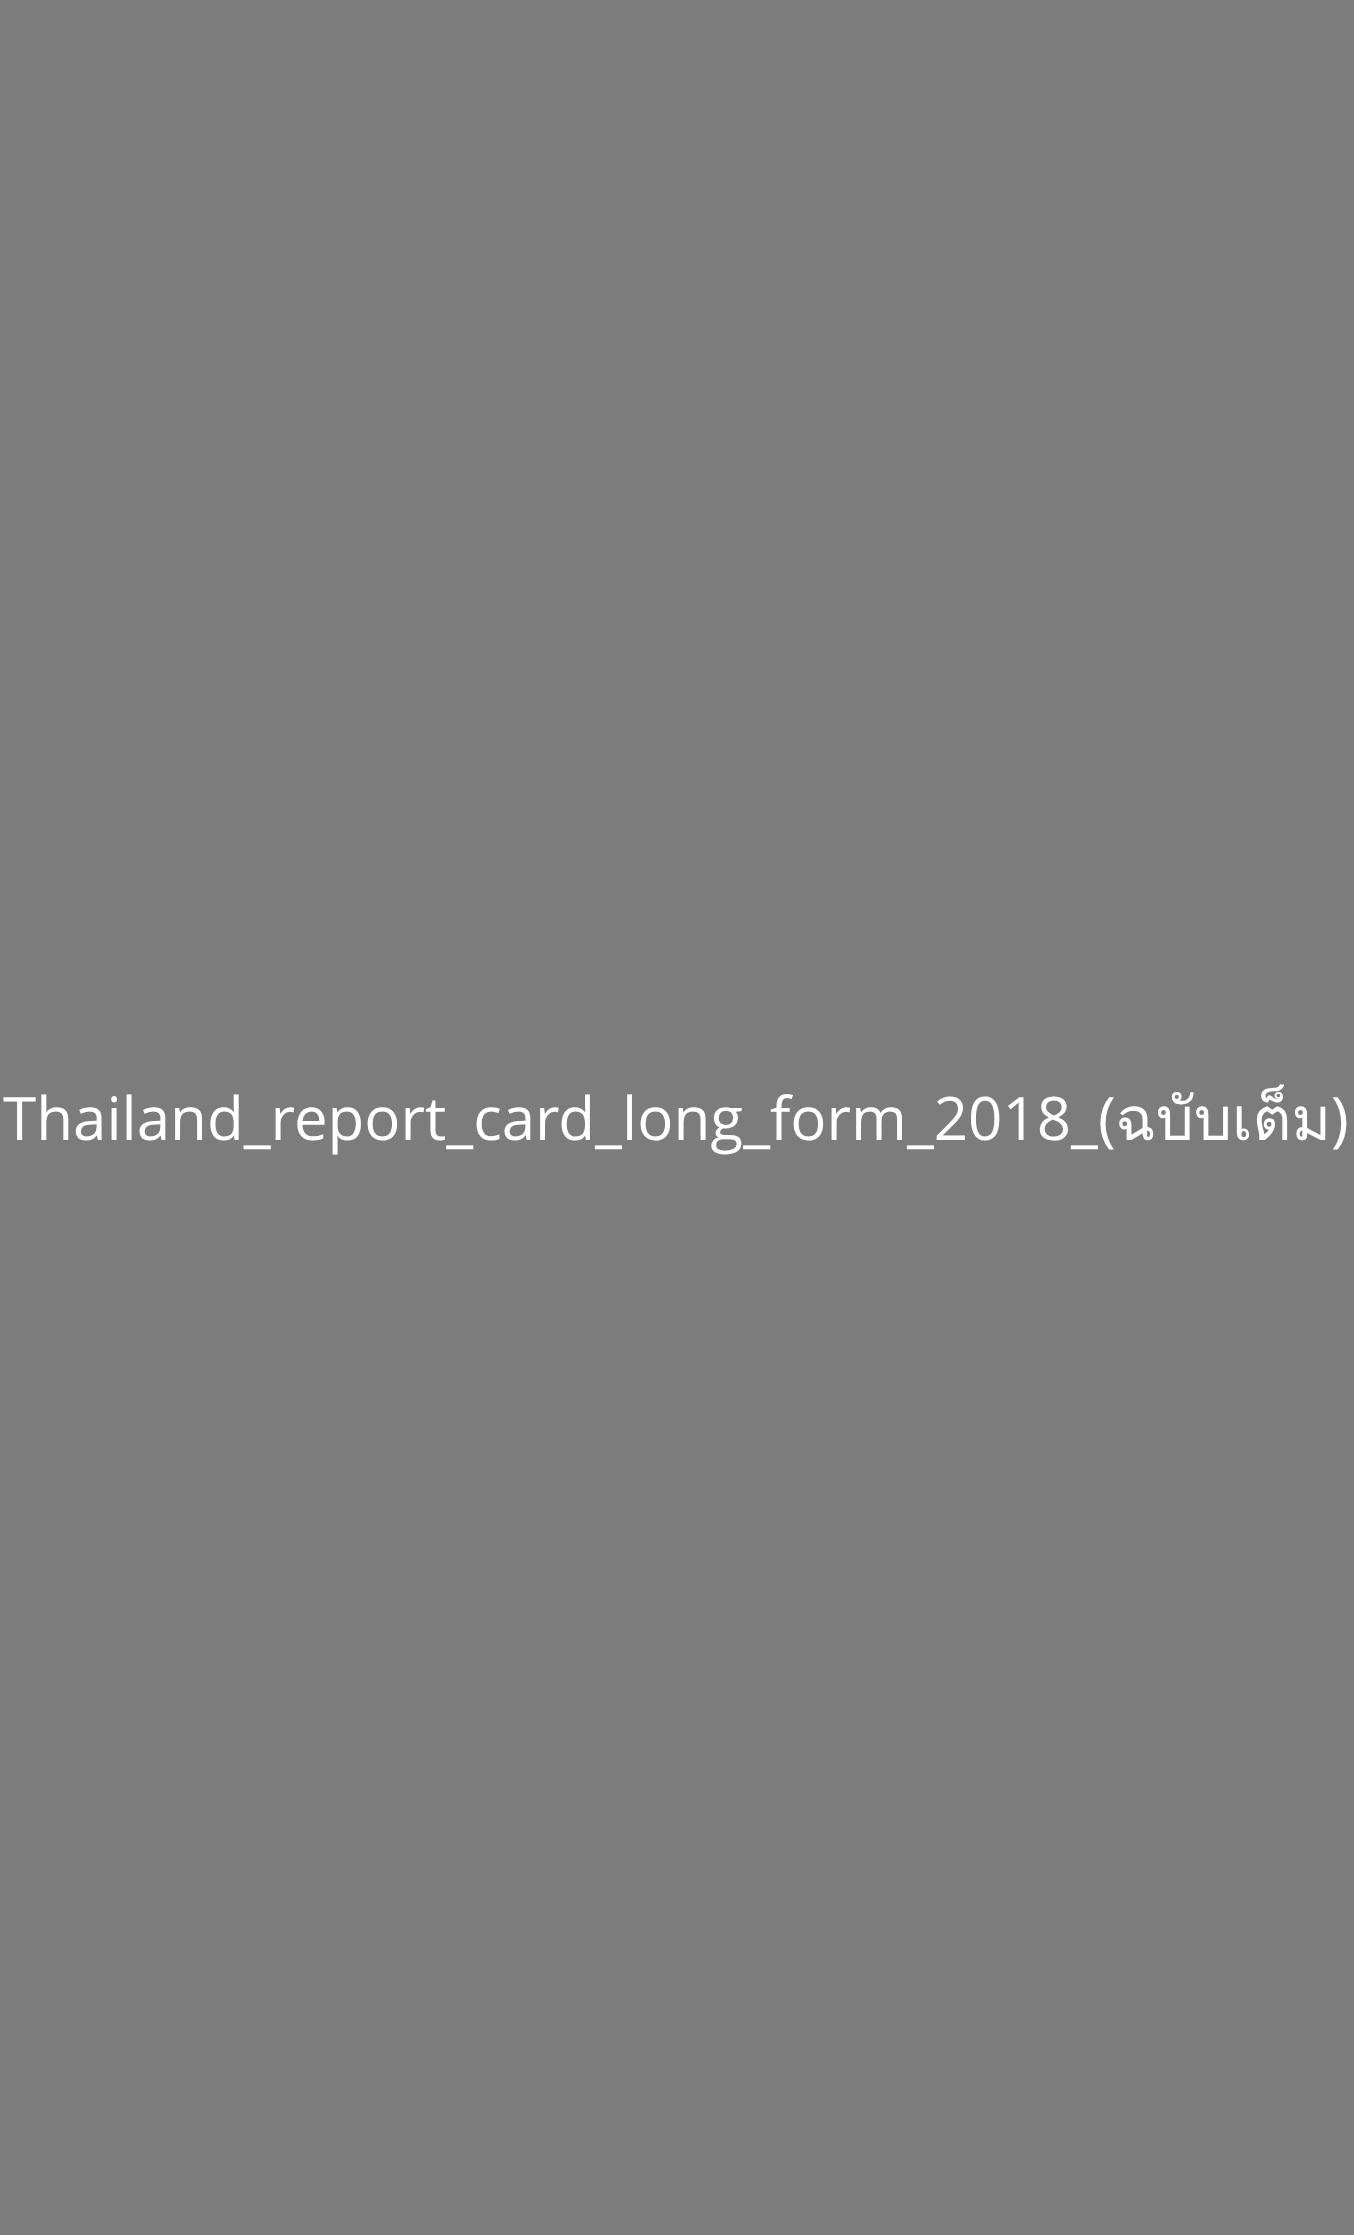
<?xml version="1.0" encoding="UTF-8"?>
<svg xmlns="http://www.w3.org/2000/svg" xmlns:xlink="http://www.w3.org/1999/xlink" width="1354" height="2235">
  <rect width="100%" height="100%" fill="#7c7c7c" />
  <text x="3" y="1140" style="font-family: Open Sans; font-size: 60px; fill: #ffffff">Thailand_report_card_long_form_2018_(</text>
  <text x="1115" y="1140" style="font-family: Loma; font-size: 60px; fill: #ffffff">ฉบับเต็ม</text>
  <text x="1331" y="1140" style="font-family: Open Sans; font-size: 60px; fill: #ffffff">)</text>
</svg>
